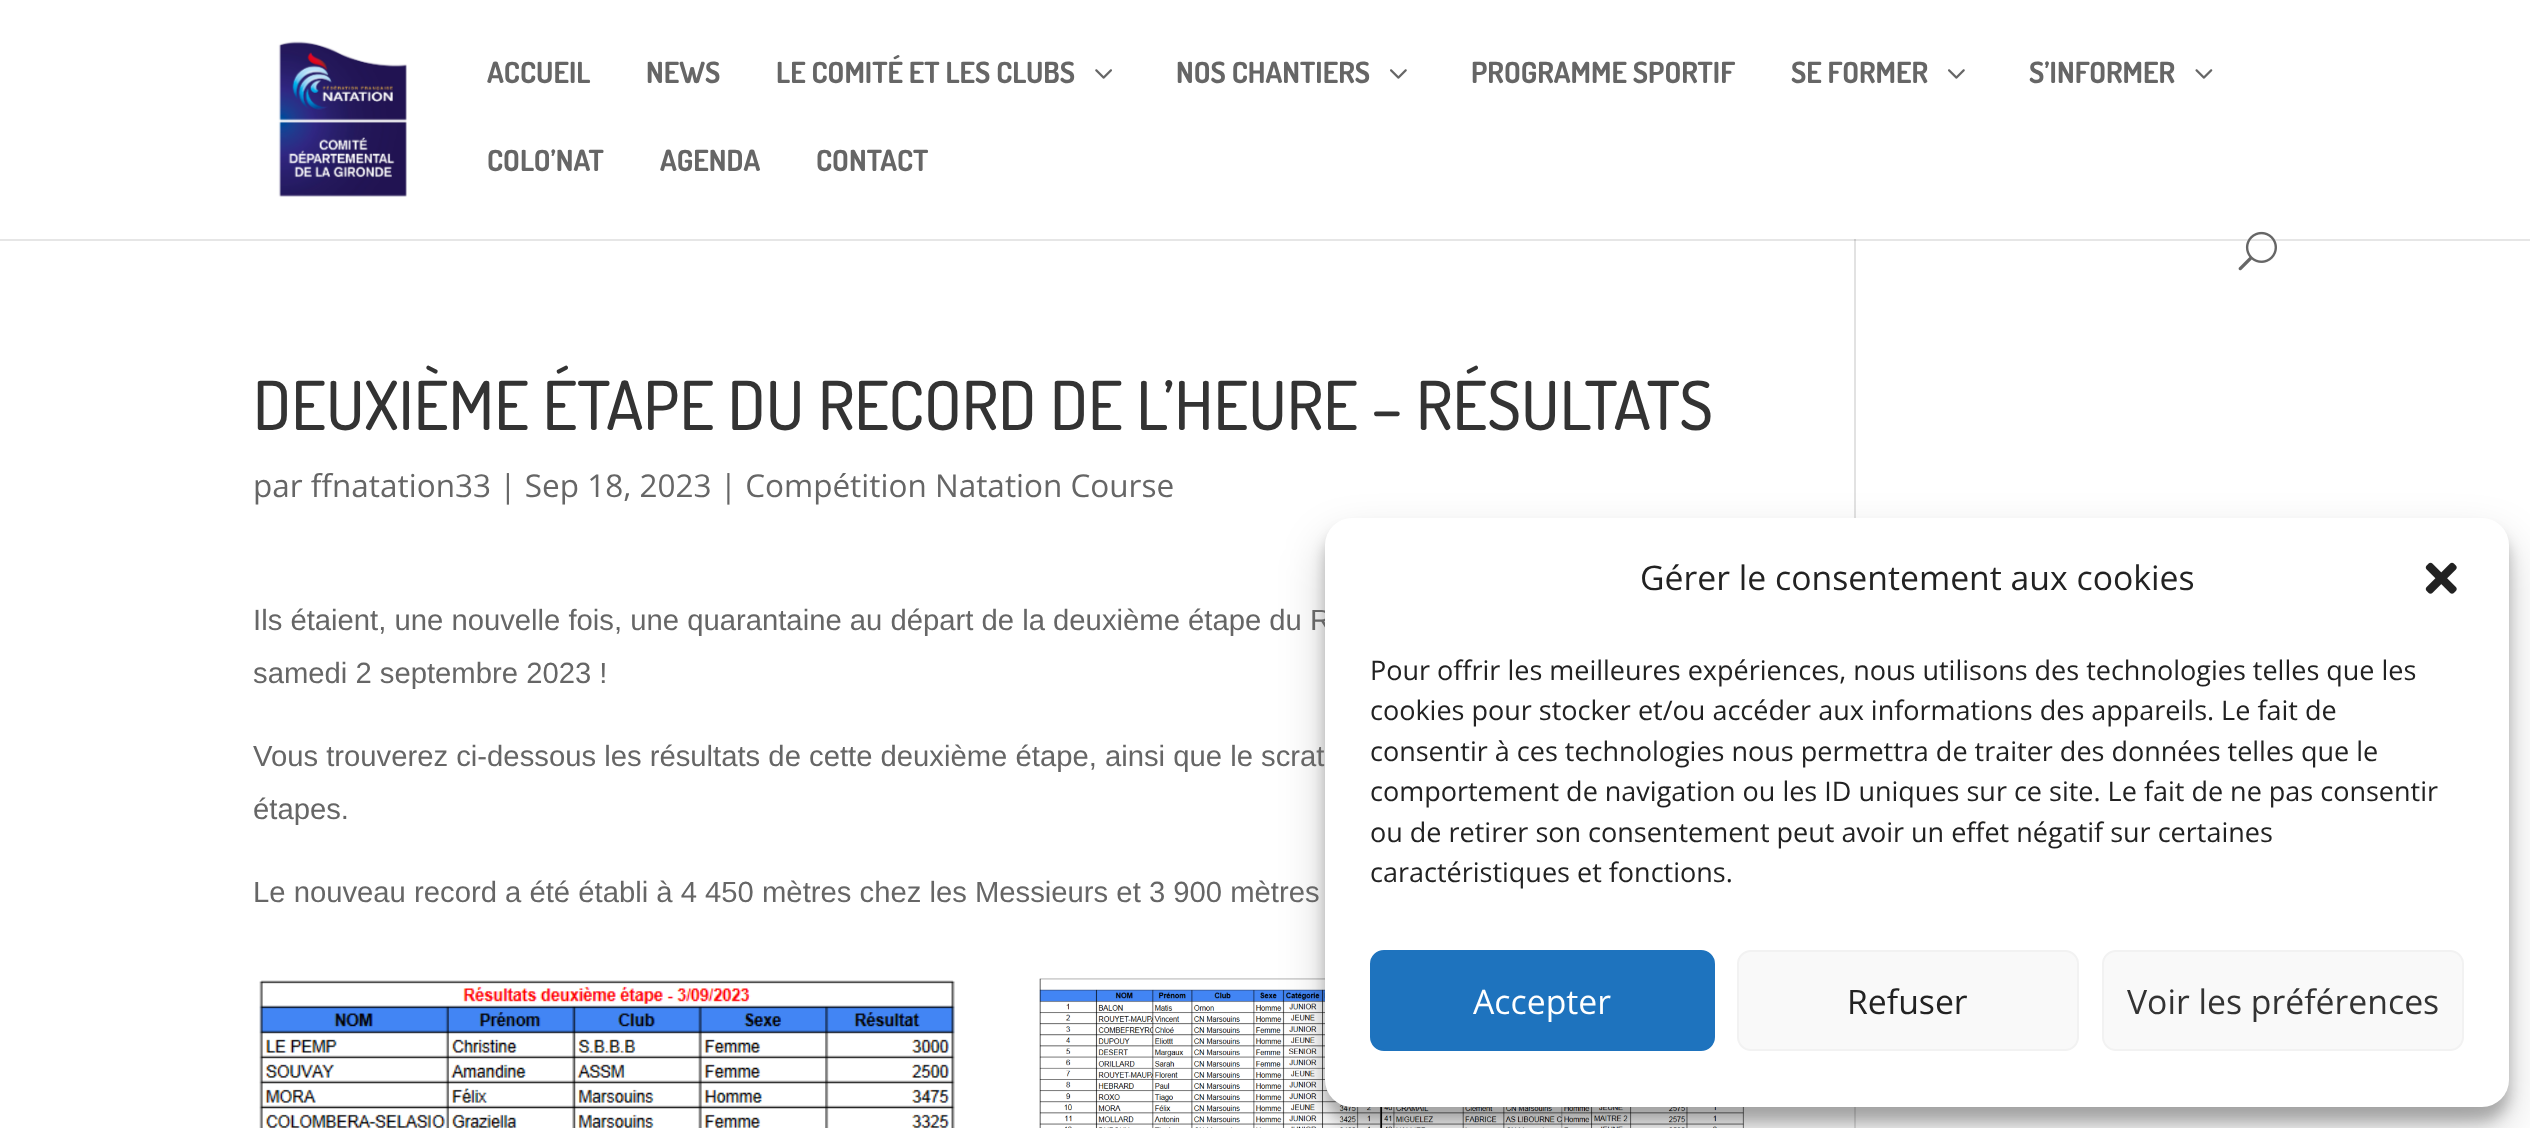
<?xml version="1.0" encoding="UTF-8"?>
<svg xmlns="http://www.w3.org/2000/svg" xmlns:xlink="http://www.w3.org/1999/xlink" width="2530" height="1128">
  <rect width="100%" height="100%" fill="#ffffff" />
  <rect y="239" width="2530" height="2" fill="#e6e6e6" />
  <image x="278" y="41" width="129" height="156" xlink:href="image1.png" />
  <image x="1095" y="69" width="17" height="10" xlink:href="image2.png" />
  <image x="1390" y="69" width="17" height="10" xlink:href="image3.png" />
  <image x="1948" y="69" width="17" height="10" xlink:href="image3.png" />
  <image x="2195" y="69" width="18" height="10" xlink:href="image4.png" />
  <image x="2238" y="231" width="39" height="40" xlink:href="image5.png" />
  <image x="259" y="980" width="696" height="148" xlink:href="image6.png" />
  <image x="1039" y="978" width="705" height="150" xlink:href="image7.png" />
  <rect x="1854" y="239" width="2" height="889" fill="#e2e2e2" />
  <rect x="1854" y="239" width="2" height="2" fill="#cbcbcb" />
  <rect x="1325" y="531" width="1184" height="590" rx="27" fill="#000000" fill-opacity="0.23" filter="blur(7px)" />
  <rect x="1325" y="540" width="1184" height="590" rx="27" fill="#000000" fill-opacity="0.19" filter="blur(22.5px)" />
  <text x="487" y="83" style="font-family: Dosis; font-size: 29.25px; font-weight: bold; fill: #666666">ACCUEIL</text>
  <text x="646" y="83" style="font-family: Dosis; font-size: 29.25px; font-weight: bold; fill: #666666">NEWS</text>
  <text x="776" y="83" style="font-family: Dosis; font-size: 29.25px; font-weight: bold; fill: #666666">LE COMITÉ ET LES CLUBS</text>
  <text x="1176" y="83" style="font-family: Dosis; font-size: 29.25px; font-weight: bold; fill: #666666">NOS CHANTIERS</text>
  <text x="1471" y="83" style="font-family: Dosis; font-size: 29.25px; font-weight: bold; fill: #666666">PROGRAMME SPORTIF</text>
  <text x="1791" y="83" style="font-family: Dosis; font-size: 29.25px; font-weight: bold; fill: #666666">SE FORMER</text>
  <text x="2029" y="83" style="font-family: Dosis; font-size: 29.25px; font-weight: bold; fill: #666666">S’INFORMER</text>
  <text x="487" y="171" style="font-family: Dosis; font-size: 29.25px; font-weight: bold; fill: #666666">COLO’NAT</text>
  <text x="660" y="171" style="font-family: Dosis; font-size: 29.25px; font-weight: bold; fill: #666666">AGENDA</text>
  <text x="816" y="171" style="font-family: Dosis; font-size: 29.25px; font-weight: bold; fill: #666666">CONTACT</text>
  <text x="253" y="430" style="font-family: Dosis; font-size: 67.5px; font-weight: 500; fill: #333333">DEUXIÈME ÉTAPE DU RECORD DE L’HEURE – RÉSULTATS</text>
  <text x="253" y="497" style="font-family: Open Sans; font-size: 31.5px; fill: #666666">par ffnatation33 | Sep 18, 2023 | Compétition Natation Course</text>
  <text x="253" y="630" style="font-family: Liberation Sans; font-size: 29.25px; fill: #666666">Ils étaient, une nouvelle fois, une quarantaine au départ de la deuxième étape du R</text>
  <text x="253" y="683" style="font-family: Liberation Sans; font-size: 29.25px; fill: #666666">samedi 2 septembre 2023 !</text>
  <text x="253" y="766" style="font-family: Liberation Sans; font-size: 29.25px; fill: #666666">Vous trouverez ci-dessous les résultats de cette deuxième étape, ainsi que le scrat</text>
  <text x="253" y="819" style="font-family: Liberation Sans; font-size: 29.25px; fill: #666666">étapes.</text>
  <text x="253" y="902" style="font-family: Liberation Sans; font-size: 29.25px; fill: #666666">Le nouveau record a été établi à 4 450 mètres chez les Messieurs et 3 900 mètres</text>
  <rect x="1325" y="518" width="1184" height="589" rx="27" fill="#ffffff" />
  <text x="1640" y="590" style="font-family: Open Sans; font-size: 33.75px; fill: #222222">Gérer le consentement aux cookies</text>
  <image x="2425" y="562" width="32" height="32" xlink:href="image8.png" />
  <text x="1370" y="680" style="font-family: Open Sans; font-size: 27px; fill: #222222">Pour offrir les meilleures expériences, nous utilisons des technologies telles que les</text>
  <text x="1370" y="720" style="font-family: Open Sans; font-size: 27px; fill: #222222">cookies pour stocker et/ou accéder aux informations des appareils. Le fait de</text>
  <text x="1370" y="761" style="font-family: Open Sans; font-size: 27px; fill: #222222">consentir à ces technologies nous permettra de traiter des données telles que le</text>
  <text x="1370" y="801" style="font-family: Open Sans; font-size: 27px; fill: #222222">comportement de navigation ou les ID uniques sur ce site. Le fait de ne pas consentir</text>
  <text x="1370" y="842" style="font-family: Open Sans; font-size: 27px; fill: #222222">ou de retirer son consentement peut avoir un effet négatif sur certaines</text>
  <text x="1370" y="882" style="font-family: Open Sans; font-size: 27px; fill: #222222">caractéristiques et fonctions.</text>
  <rect x="1371" y="951" width="343" height="99" rx="13" fill="#1e73be" stroke="#1e73be" stroke-width="2" />
  <text x="1473" y="1014" style="font-family: Open Sans; font-size: 33.75px; fill: #ffffff">Accepter</text>
  <rect x="1738" y="951" width="340" height="99" rx="13" fill="#f9f9f9" stroke="#f2f2f2" stroke-width="2" />
  <text x="1847" y="1014" style="font-family: Open Sans; font-size: 33.75px; fill: #222222">Refuser</text>
  <rect x="2103" y="951" width="360" height="99" rx="13" fill="#f9f9f9" stroke="#f2f2f2" stroke-width="2" />
  <text x="2127" y="1014" style="font-family: Open Sans; font-size: 33.75px; fill: #333333">Voir les préférences</text>
</svg>
